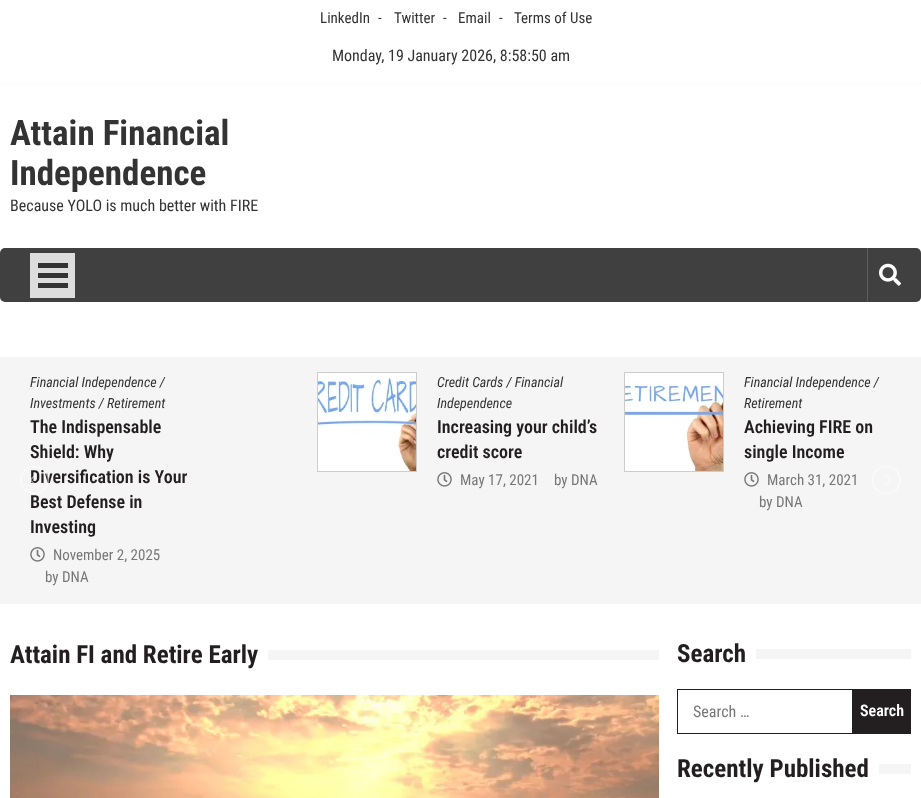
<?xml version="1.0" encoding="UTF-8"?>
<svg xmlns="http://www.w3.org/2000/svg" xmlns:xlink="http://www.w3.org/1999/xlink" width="921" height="798">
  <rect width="100%" height="100%" fill="#ffffff" />
  <path d="M 0 83.5 h 921" fill="none" stroke="#f7f5f5" stroke-dasharray="1 1" />
  <rect y="248" width="921" height="54" rx="5" fill="#404040" />
  <rect x="30" y="253" width="45" height="45" fill="#dddddd" />
  <rect x="38" y="263" width="30" height="5" fill="#333333" />
  <rect x="38" y="273" width="30" height="5" fill="#333333" />
  <rect x="38" y="283" width="30" height="5" fill="#333333" />
  <rect x="867" y="248" width="1" height="54" fill="#5d5d5d" />
  <image x="879" y="263" width="22" height="23" xlink:href="image1.png" />
  <rect y="357" width="921" height="247" fill="#f5f5f5" />
  <image x="30" y="547" width="15" height="15" xlink:href="image2.png" />
  <rect x="317.5" y="372.5" width="99" height="99" fill="none" stroke="#cccccc" />
  <image x="318" y="373" width="98" height="98" xlink:href="image3.png" />
  <image x="437" y="472" width="15" height="15" xlink:href="image2.png" />
  <rect x="624.5" y="372.5" width="99" height="99" fill="none" stroke="#cccccc" />
  <image x="625" y="373" width="98" height="98" xlink:href="image4.png" />
  <image x="744" y="472" width="15" height="15" xlink:href="image2.png" />
  <image x="872" y="466" width="29" height="28" xlink:href="image6.png" />
  <rect x="268" y="650" width="391" height="10" fill="#f5f5f5" />
  <image x="10" y="695" width="649" height="103" xlink:href="image7.png" />
  <rect x="756" y="649" width="155" height="10" fill="#f5f5f5" />
  <rect x="677" y="689" width="175" height="1" fill="#231f20" />
  <rect x="677" y="733" width="175" height="1" fill="#231f20" />
  <rect x="677" y="689" width="1" height="45" fill="#231f20" />
  <rect x="852" y="689" width="59" height="45" fill="#231f20" />
  <rect x="879" y="764" width="32" height="10" fill="#f5f5f5" />
  <text x="320" y="23" style="font-family: Roboto Condensed; font-size: 15px; fill: #333333">LinkedIn</text>
  <text x="378" y="23" style="font-family: Roboto Condensed; font-size: 15px; fill: #333333">-</text>
  <text x="394" y="23" style="font-family: Roboto Condensed; font-size: 15px; fill: #333333">Twitter</text>
  <text x="443" y="23" style="font-family: Roboto Condensed; font-size: 15px; fill: #333333">-</text>
  <text x="458" y="23" style="font-family: Roboto Condensed; font-size: 15px; fill: #333333">Email</text>
  <text x="499" y="23" style="font-family: Roboto Condensed; font-size: 15px; fill: #333333">-</text>
  <text x="514" y="23" style="font-family: Roboto Condensed; font-size: 15px; fill: #333333">Terms of Use</text>
  <text x="332" y="61" style="font-family: Roboto Condensed; font-size: 16px; fill: #333333">Monday, 19 January 2026, 8:58:50 am</text>
  <text x="10" y="145" style="font-family: Roboto Condensed; font-size: 35px; font-weight: bold; fill: #333333">Attain Financial</text>
  <text x="10" y="185" style="font-family: Roboto Condensed; font-size: 35px; font-weight: bold; fill: #333333">Independence</text>
  <text x="10" y="211" style="font-family: Roboto Condensed; font-size: 16px; fill: #333333">Because YOLO is much better with FIRE</text>
  <text x="30" y="387" style="font-family: Roboto Condensed; font-size: 14px; font-style: italic; fill: #333333">Financial Independence /</text>
  <text x="30" y="408" style="font-family: Roboto Condensed; font-size: 14px; font-style: italic; fill: #333333">Investments / Retirement</text>
  <text x="30" y="433" style="font-family: Roboto Condensed; font-size: 18px; font-weight: 600; fill: #231f20">The Indispensable</text>
  <text x="30" y="458" style="font-family: Roboto Condensed; font-size: 18px; font-weight: 600; fill: #231f20">Shield: Why</text>
  <text x="30" y="483" style="font-family: Roboto Condensed; font-size: 18px; font-weight: 600; fill: #231f20">Diversification is Your</text>
  <text x="30" y="508" style="font-family: Roboto Condensed; font-size: 18px; font-weight: 600; fill: #231f20">Best Defense in</text>
  <text x="30" y="533" style="font-family: Roboto Condensed; font-size: 18px; font-weight: 600; fill: #231f20">Investing</text>
  <text x="53" y="560" style="font-family: Roboto Condensed; font-size: 15px; fill: #777777">November 2, 2025</text>
  <text x="45" y="582" style="font-family: Roboto Condensed; font-size: 15px; fill: #777777">by DNA</text>
  <text x="437" y="387" style="font-family: Roboto Condensed; font-size: 14px; font-style: italic; fill: #333333">Credit Cards / Financial</text>
  <text x="437" y="408" style="font-family: Roboto Condensed; font-size: 14px; font-style: italic; fill: #333333">Independence</text>
  <text x="437" y="433" style="font-family: Roboto Condensed; font-size: 18px; font-weight: 600; fill: #231f20">Increasing your child’s</text>
  <text x="437" y="458" style="font-family: Roboto Condensed; font-size: 18px; font-weight: 600; fill: #231f20">credit score</text>
  <text x="460" y="485" style="font-family: Roboto Condensed; font-size: 15px; fill: #777777">May 17, 2021</text>
  <text x="554" y="485" style="font-family: Roboto Condensed; font-size: 15px; fill: #777777">by DNA</text>
  <text x="744" y="387" style="font-family: Roboto Condensed; font-size: 14px; font-style: italic; fill: #333333">Financial Independence /</text>
  <text x="744" y="408" style="font-family: Roboto Condensed; font-size: 14px; font-style: italic; fill: #333333">Retirement</text>
  <text x="744" y="433" style="font-family: Roboto Condensed; font-size: 18px; font-weight: 600; fill: #231f20">Achieving FIRE on</text>
  <text x="744" y="458" style="font-family: Roboto Condensed; font-size: 18px; font-weight: 600; fill: #231f20">single Income</text>
  <text x="767" y="485" style="font-family: Roboto Condensed; font-size: 15px; fill: #777777">March 31, 2021</text>
  <text x="759" y="507" style="font-family: Roboto Condensed; font-size: 15px; fill: #777777">by DNA</text>
  <image x="20" y="466" width="29" height="28" xlink:href="image5.png" />
  <text x="10" y="663" style="font-family: Roboto Condensed; font-size: 25px; font-weight: bold; fill: #231f20">Attain FI and Retire Early</text>
  <text x="677" y="662" style="font-family: Roboto Condensed; font-size: 25px; font-weight: bold; fill: #231f20">Search</text>
  <text x="693" y="717" style="font-family: Roboto Condensed; font-size: 16px; fill: #777777">Search …</text>
  <text x="860" y="716" style="font-family: Roboto Condensed; font-size: 16px; font-weight: 600; fill: #ffffff">Search</text>
  <text x="677" y="777" style="font-family: Roboto Condensed; font-size: 25px; font-weight: bold; fill: #231f20">Recently Published</text>
</svg>
